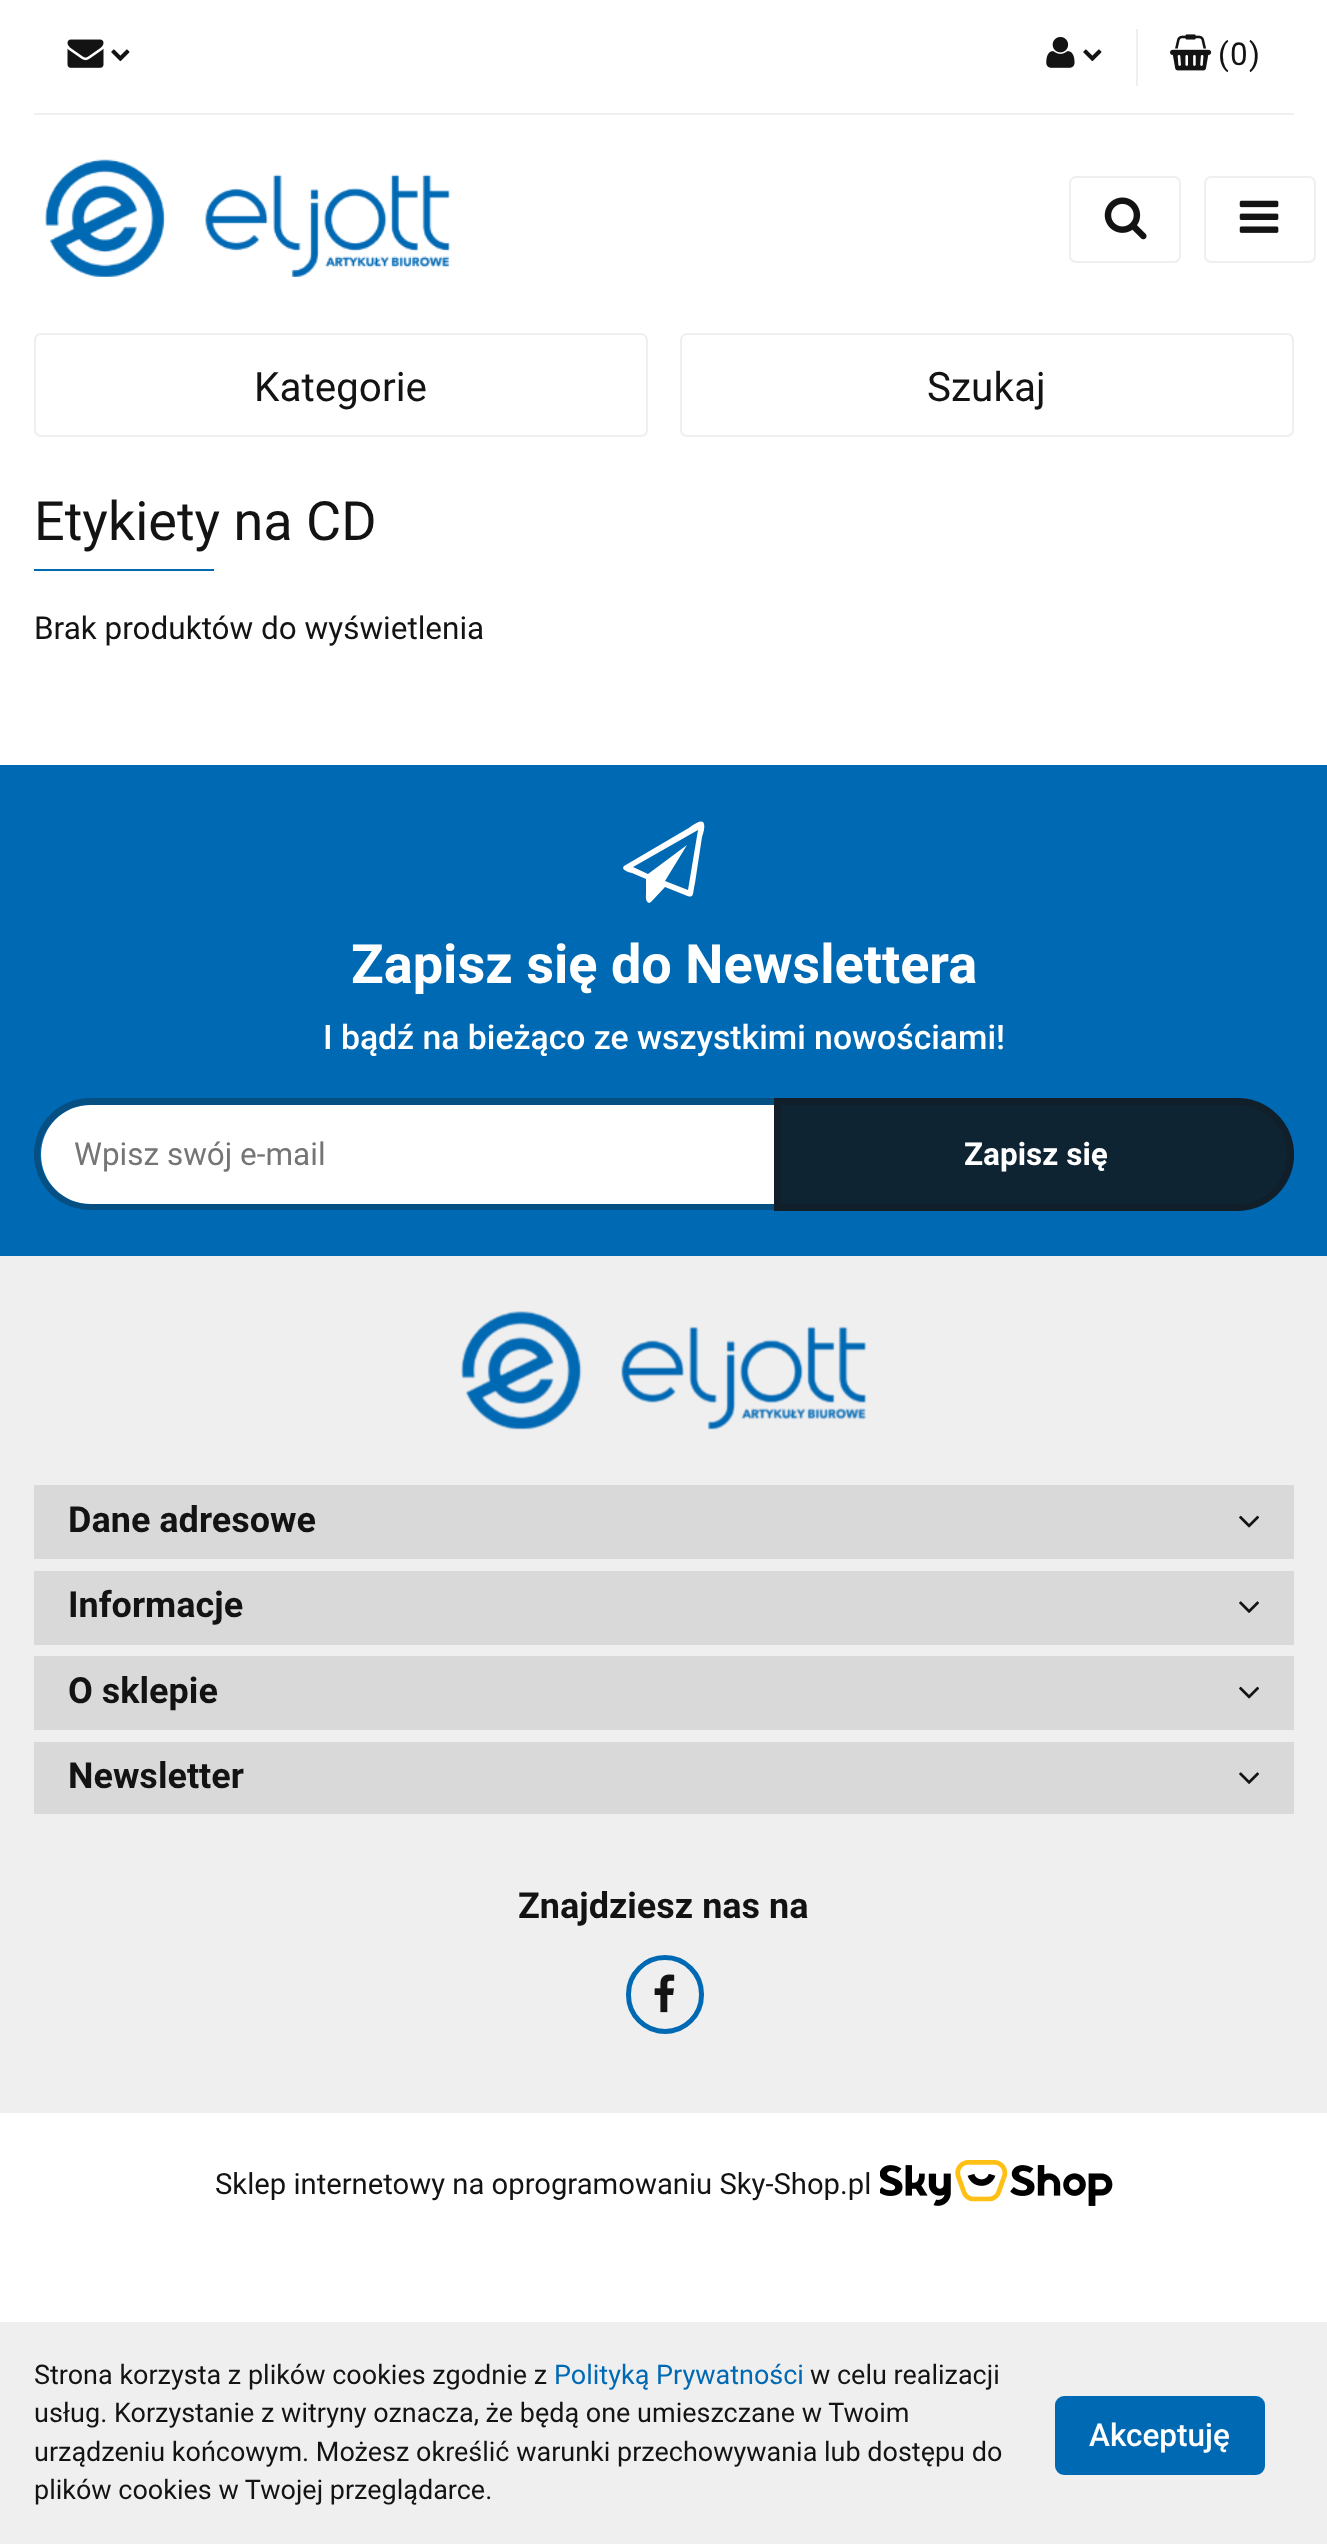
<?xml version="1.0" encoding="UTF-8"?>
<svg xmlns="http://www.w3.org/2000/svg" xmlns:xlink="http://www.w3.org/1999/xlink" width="1327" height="2544">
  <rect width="100%" height="100%" fill="#ffffff" />
  <rect x="34" y="113" width="1260" height="2" fill="#efefef" />
  <image x="67" y="39" width="37" height="29" xlink:href="image1.png" />
  <image x="111" y="49" width="19" height="13" xlink:href="image2.png" />
  <image x="1046" y="37" width="29" height="31" xlink:href="image3.png" />
  <image x="1083" y="49" width="19" height="13" xlink:href="image2.png" />
  <rect x="1136" y="29" width="2" height="57" fill="#efefef" />
  <image x="1170" y="34" width="42" height="37" xlink:href="image4.png" />
  <image x="45" y="159" width="405" height="118" xlink:href="image5.png" />
  <rect x="1070" y="177" width="110" height="85" rx="6" fill="none" stroke="#efefef" stroke-width="2" />
  <image x="1104" y="197" width="43" height="43" xlink:href="image6.png" />
  <rect x="1205" y="177" width="110" height="85" rx="6" fill="none" stroke="#efefef" stroke-width="2" />
  <image x="1239" y="200" width="40" height="33" xlink:href="image7.png" />
  <rect x="35" y="334" width="612" height="102" rx="6" fill="none" stroke="#efefef" stroke-width="2" />
  <rect x="681" y="334" width="612" height="102" rx="6" fill="none" stroke="#efefef" stroke-width="2" />
  <rect x="34" y="569" width="180" height="2" fill="#0069b4" />
  <rect y="765" width="1327" height="491" fill="#0069b4" />
  <path d="M 703 822 c 3 3 0 12 -1 15 l -7 46 c -3 12 0 16 -10 12 l -20 -8 l -14 15 l -2 1 c -4 -1 -3 -8 -3 -10 v -14 l -14 -6 c -1 0 -12 -3 -8 -7 l 63 -37 c 1 0 12 -10 16 -7 z m -15 68 l 10 -60 l -65 37 l 15 7 l 39 -29 l -22 36 z" fill="#ffffff" />
  <path d="M 90.5 1105 h 683.5 v 99 h -683.5 c -27.5 0 -49.5 -22 -49.5 -49.5 c 0 -27.5 22 -49.5 49.5 -49.5 z" fill="#ffffff" />
  <path d="M 90 1098 h 684 v 112 h -684 c -31 0 -56 -25 -56 -56 c 0 -31 25 -56 56 -56 z m 0 7 h 684 v 99 h -684 c -27 0 -50 -22 -50 -50 c 0 -27 23 -49 50 -49 z" fill="#131313" fill-opacity="0.3" fill-rule="evenodd" />
  <path d="M 774 1098 h 463.5 c 31 0 56.5 25.5 56.5 56.5 c 0 31 -25.5 56.5 -56.5 56.5 h -463.5 z" fill="#0f2433" />
  <path d="M 777.5 1101.5 h 460 c 29.5 0 53 23.5 53 53 c 0 29.5 -23.5 53 -53 53 h -460 z" fill="none" stroke="#131313" stroke-opacity="0.3" stroke-width="7" />
  <rect y="1256" width="1327" height="857" fill="#efefef" />
  <image x="461" y="1311" width="406" height="119" xlink:href="image8.png" />
  <rect x="34" y="1485" width="1260" height="74" fill="#d9d9d9" />
  <image x="1239" y="1515" width="21" height="13" xlink:href="image9.png" />
  <rect x="34" y="1571" width="1260" height="74" fill="#d9d9d9" />
  <image x="1239" y="1601" width="20" height="12" xlink:href="image10.png" />
  <rect x="34" y="1656" width="1260" height="74" fill="#d9d9d9" />
  <image x="1239" y="1686" width="21" height="13" xlink:href="image9.png" />
  <rect x="34" y="1742" width="1260" height="72" fill="#d9d9d9" />
  <image x="1239" y="1772" width="20" height="12" xlink:href="image10.png" />
  <rect x="628.5" y="1957.5" width="73" height="74" rx="36.5" fill="none" stroke="#0069b4" stroke-width="5" />
  <image x="654" y="1974" width="21" height="39" xlink:href="image11.png" />
  <image x="880" y="2160" width="233" height="46" xlink:href="image12.png" />
  <rect y="2322" width="1327" height="222" fill="#efefef" />
  <rect x="1058.5" y="2399.5" width="203" height="72" rx="5.5" fill="#0069b4" stroke="#0069b4" stroke-width="7" />
  <text x="1218" y="65" style="font-family: Roboto; font-size: 31.5px; fill: #131313">(</text>
  <text x="1230" y="65" style="font-family: Roboto; font-size: 31.5px; fill: #131313">0</text>
  <text x="1249" y="65" style="font-family: Roboto; font-size: 31.5px; fill: #131313">)</text>
  <text x="254" y="401" style="font-family: Roboto; font-size: 40.5px; fill: #131313">Kategorie</text>
  <text x="927" y="401" style="font-family: Roboto; font-size: 40.5px; fill: #131313">Szukaj</text>
  <text x="34" y="540" style="font-family: Roboto; font-size: 54px; fill: #131313">Etykiety na CD</text>
  <text x="34" y="639" style="font-family: Roboto; font-size: 31.5px; fill: #131313">Brak produktów do wyświetlenia</text>
  <text x="351" y="983" style="font-family: Roboto; font-size: 54px; font-weight: bold; fill: #ffffff">Zapisz się do Newslettera</text>
  <text x="323" y="1049" style="font-family: Roboto; font-size: 33.75px; font-weight: 500; fill: #ffffff">I bądź na bieżąco ze wszystkimi nowościami!</text>
  <text x="74" y="1165" style="font-family: Roboto; font-size: 31.5px; fill: #757575">Wpisz swój e-mail</text>
  <text x="964" y="1165" style="font-family: Roboto; font-size: 31.5px; font-weight: bold; fill: #ffffff">Zapisz się</text>
  <text x="68" y="1532" style="font-family: Roboto; font-size: 36px; font-weight: bold; fill: #131313">Dane adresowe</text>
  <text x="68" y="1617" style="font-family: Roboto; font-size: 36px; font-weight: bold; fill: #131313">Informacje</text>
  <text x="68" y="1703" style="font-family: Roboto; font-size: 36px; font-weight: bold; fill: #131313">O sklepie</text>
  <text x="68" y="1788" style="font-family: Roboto; font-size: 36px; font-weight: bold; fill: #131313">Newsletter</text>
  <text x="518" y="1918" style="font-family: Roboto; font-size: 36px; font-weight: bold; fill: #131313">Znajdziesz nas na</text>
  <text x="215" y="2194" style="font-family: Roboto; font-size: 29.25px; fill: #131313">Sklep internetowy na oprogramowaniu Sky-Shop.pl</text>
  <text x="34" y="2384" style="font-family: Roboto; font-size: 27px; fill: #131313">Strona korzysta z plików cookies zgodnie z</text>
  <text x="554" y="2384" style="font-family: Roboto; font-size: 27px; fill: #0069b4">Polityką Prywatności</text>
  <text x="810" y="2384" style="font-family: Roboto; font-size: 27px; fill: #131313">w celu realizacji</text>
  <text x="34" y="2422" style="font-family: Roboto; font-size: 27px; fill: #131313">usług. Korzystanie z witryny oznacza, że będą one umieszczane w Twoim</text>
  <text x="34" y="2461" style="font-family: Roboto; font-size: 27px; fill: #131313">urządzeniu końcowym. Możesz określić warunki przechowywania lub dostępu do</text>
  <text x="34" y="2499" style="font-family: Roboto; font-size: 27px; fill: #131313">plików cookies w Twojej przeglądarce.</text>
  <text x="1089" y="2446" style="font-family: Roboto; font-size: 31.5px; font-weight: 500; fill: #ffffff">Akceptuję</text>
</svg>
